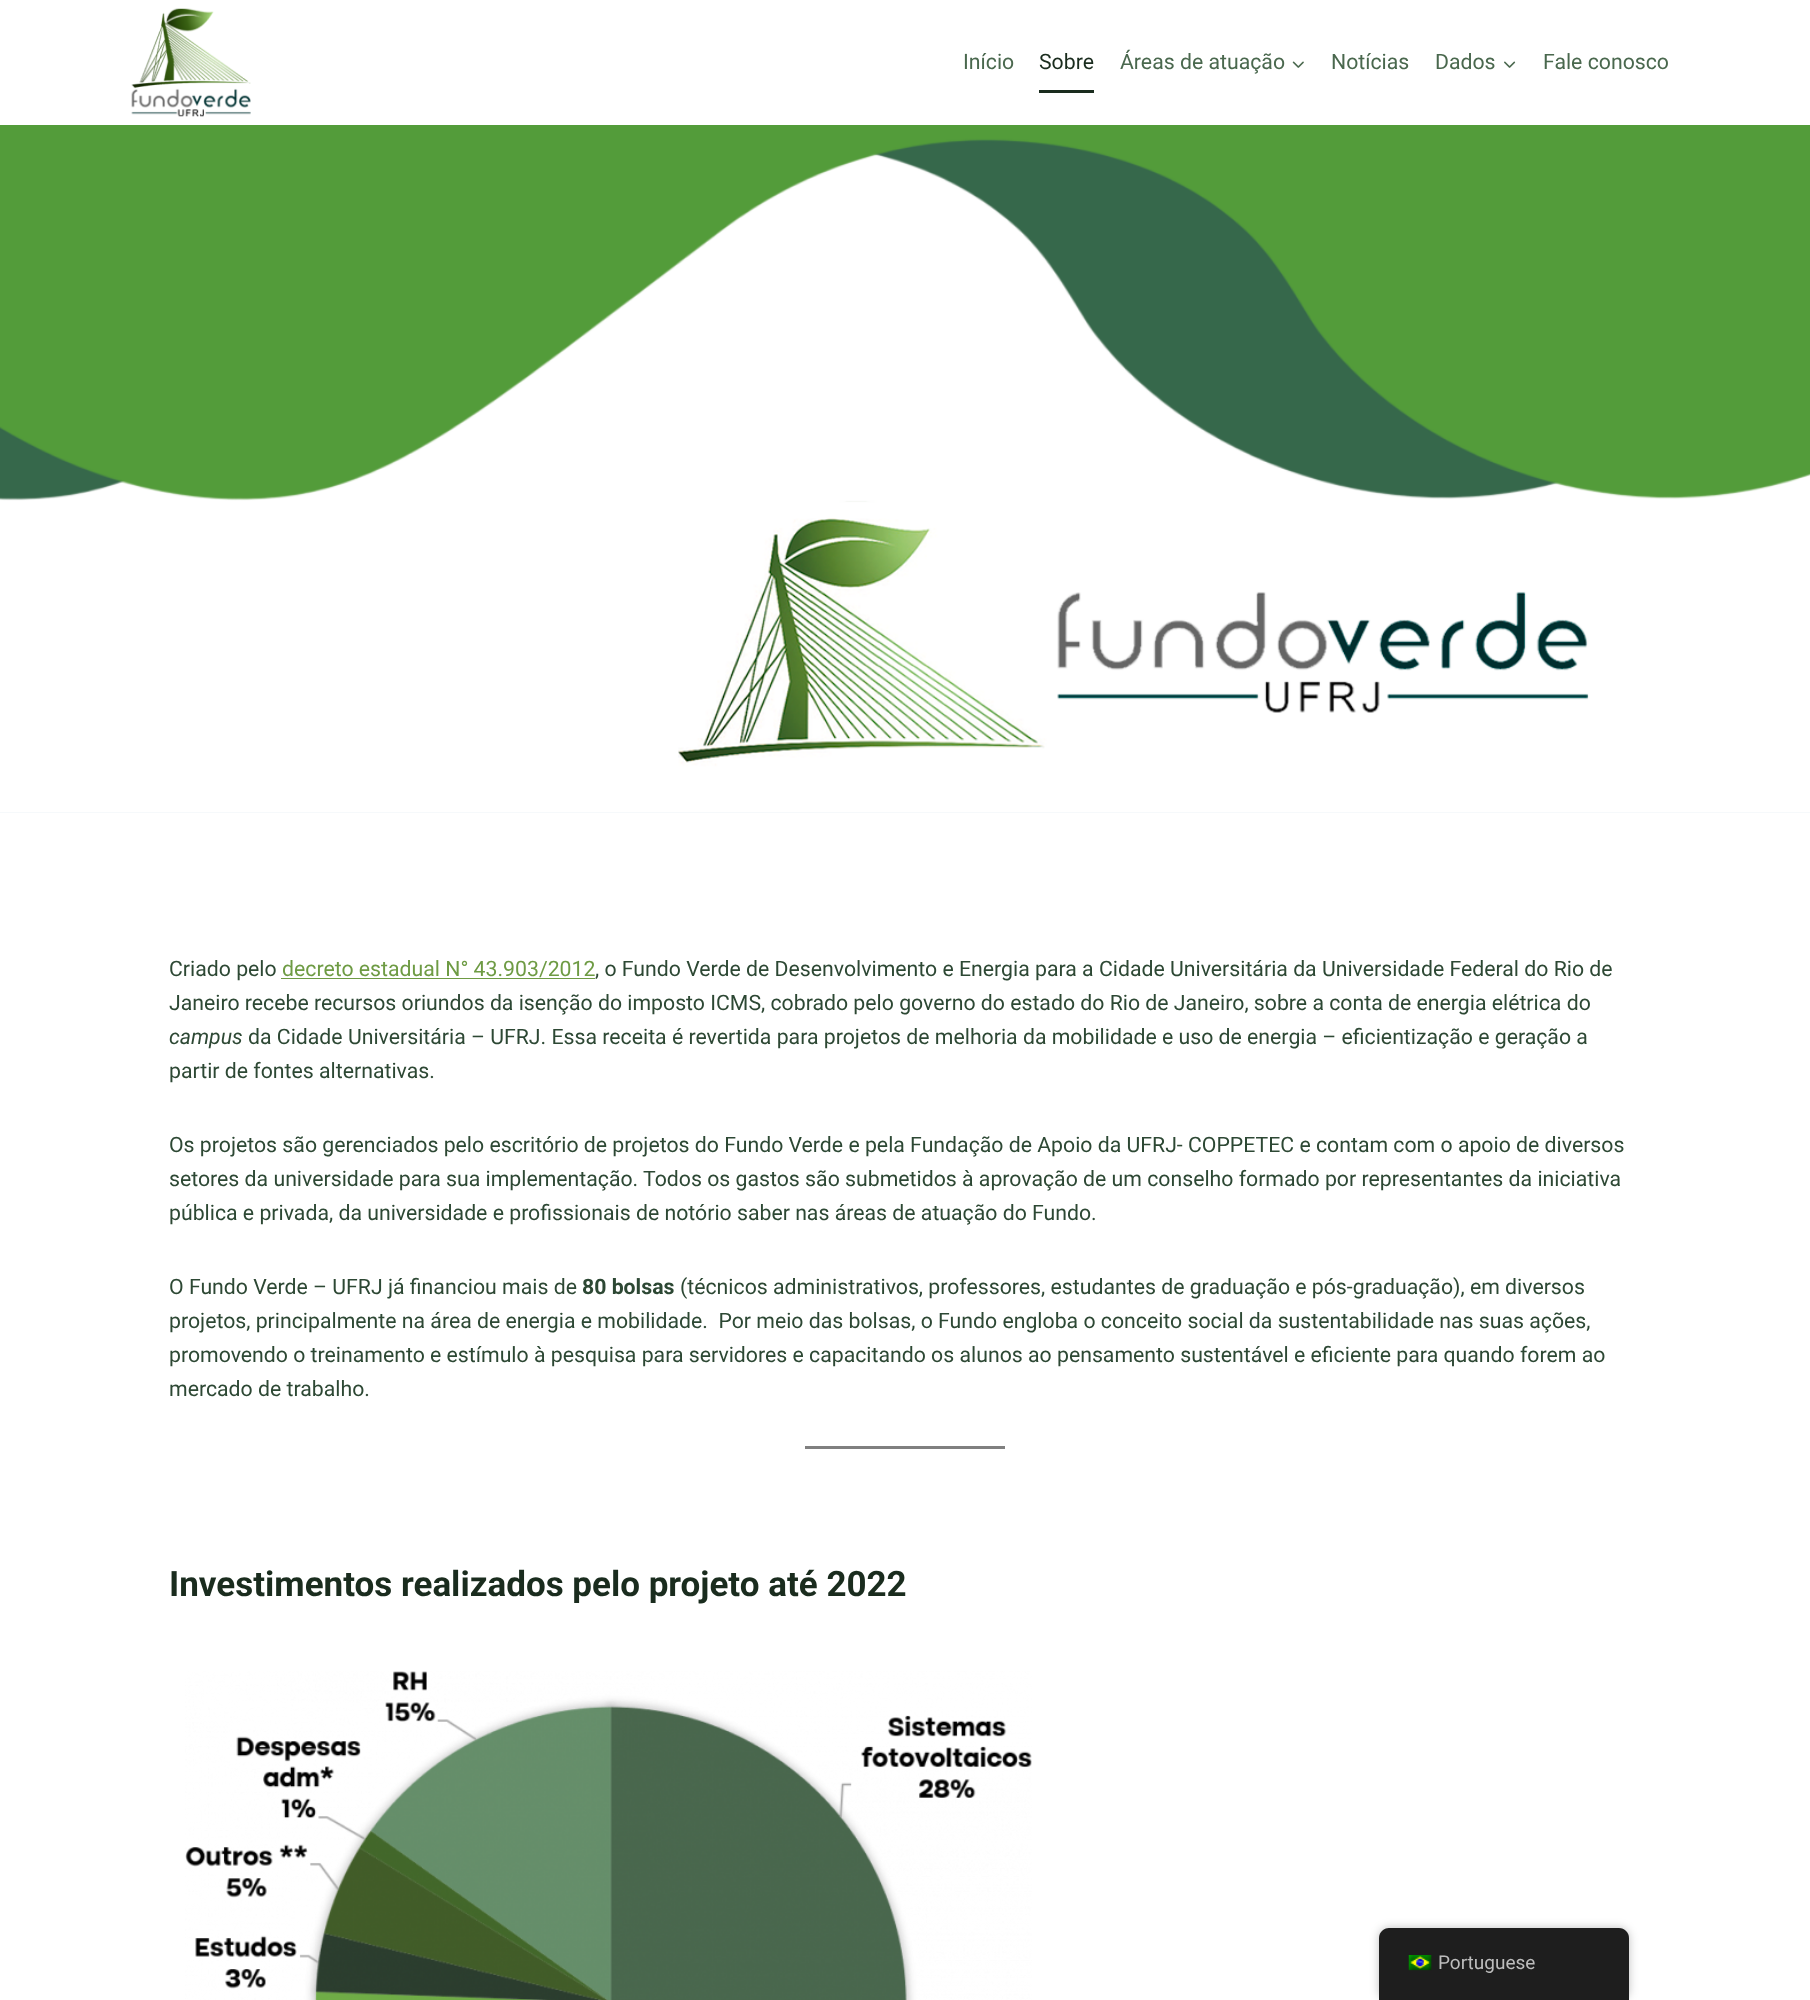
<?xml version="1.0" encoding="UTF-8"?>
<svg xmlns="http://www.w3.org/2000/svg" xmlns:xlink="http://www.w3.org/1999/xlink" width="1810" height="2000">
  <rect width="100%" height="100%" fill="#ffffff" />
  <image x="131" y="8" width="120" height="109" xlink:href="image1.png" />
  <rect x="1039" y="90" width="55" height="3" fill="#1a2c1e" />
  <image x="1292" y="61" width="12" height="7" xlink:href="image2.png" />
  <image x="1504" y="61" width="12" height="7" xlink:href="image3.png" />
  <rect y="812" width="1810" height="1" fill="#edf2f7" />
  <image x="0" y="125" width="1810" height="688" xlink:href="image4.png" />
  <rect x="281" y="978" width="314" height="1" fill="#6e9b44" />
  <rect x="805" y="1446" width="200" height="3" fill="#808080" />
  <image x="185" y="1671" width="847" height="329" xlink:href="image5.png" />
  <rect x="1379" y="1928" width="250" height="72" rx="10" fill="#000000" fill-opacity="0.25" filter="blur(5px)" />
  <path d="M 1389 1928 h 230 c 5.5 0 10 4.5 10 10 v 62 h -250 v -62 c 0 -5.5 4.5 -10 10 -10 z" fill="#1e1e1e" />
  <image x="1408" y="1955" width="24" height="16" xlink:href="image6.png" />
  <text x="963" y="69" style="font-family: Roboto; font-size: 21.25px; fill: #4a684e">Início</text>
  <text x="1039" y="69" style="font-family: Roboto; font-size: 21.25px; fill: #1a2c1e">Sobre</text>
  <text x="1120" y="69" style="font-family: Roboto; font-size: 21.25px; fill: #4a684e">Áreas de atuação</text>
  <text x="1331" y="69" style="font-family: Roboto; font-size: 21.25px; fill: #4a684e">Notícias</text>
  <text x="1435" y="69" style="font-family: Roboto; font-size: 21.25px; fill: #4a684e">Dados</text>
  <text x="1543" y="69" style="font-family: Roboto; font-size: 21.25px; fill: #4a684e">Fale conosco</text>
  <text x="169" y="976" style="font-family: Roboto; font-size: 21.25px; fill: #2d4834">Criado pelo</text>
  <text x="282" y="976" style="font-family: Roboto; font-size: 21.25px; fill: #6e9b44">decreto estadual N° 43.903/2012</text>
  <text x="595" y="976" style="font-family: Roboto; font-size: 21.25px; fill: #2d4834">, o Fundo Verde de Desenvolvimento e Energia para a Cidade Universitária da Universidade Federal do Rio de</text>
  <text x="169" y="1010" style="font-family: Roboto; font-size: 21.25px; fill: #2d4834">Janeiro recebe recursos oriundos da isenção do imposto ICMS, cobrado pelo governo do estado do Rio de Janeiro, sobre a conta de energia elétrica do</text>
  <text x="169" y="1044" style="font-family: Roboto; font-size: 21.25px; font-style: italic; fill: #2d4834">campus</text>
  <text x="248" y="1044" style="font-family: Roboto; font-size: 21.25px; fill: #2d4834">da Cidade Universitária – UFRJ. Essa receita é revertida para projetos de melhoria da mobilidade e uso de energia – eficientização e geração a</text>
  <text x="169" y="1078" style="font-family: Roboto; font-size: 21.25px; fill: #2d4834">partir de fontes alternativas.</text>
  <text x="169" y="1152" style="font-family: Roboto; font-size: 21.25px; fill: #2d4834">Os projetos são gerenciados pelo escritório de projetos do Fundo Verde e pela Fundação de Apoio da UFRJ- COPPETEC e contam com o apoio de diversos</text>
  <text x="169" y="1186" style="font-family: Roboto; font-size: 21.25px; fill: #2d4834">setores da universidade para sua implementação. Todos os gastos são submetidos à aprovação de um conselho formado por representantes da iniciativa</text>
  <text x="169" y="1220" style="font-family: Roboto; font-size: 21.25px; fill: #2d4834">pública e privada, da universidade e profissionais de notório saber nas áreas de atuação do Fundo.</text>
  <text x="169" y="1294" style="font-family: Roboto; font-size: 21.25px; fill: #2d4834">O Fundo Verde – UFRJ já financiou mais de</text>
  <text x="582" y="1294" style="font-family: Roboto; font-size: 21.25px; font-weight: bold; fill: #2d4834">80 bolsas</text>
  <text x="680" y="1294" style="font-family: Roboto; font-size: 21.25px; fill: #2d4834">(técnicos administrativos, professores, estudantes de graduação e pós-graduação), em diversos</text>
  <text x="169" y="1328" style="font-family: Roboto; font-size: 21.25px; fill: #2d4834" xml:space="preserve">projetos, principalmente na área de energia e mobilidade.  Por meio das bolsas, o Fundo engloba o conceito social da sustentabilidade nas suas ações,</text>
  <text x="169" y="1362" style="font-family: Roboto; font-size: 21.25px; fill: #2d4834">promovendo o treinamento e estímulo à pesquisa para servidores e capacitando os alunos ao pensamento sustentável e eficiente para quando forem ao</text>
  <text x="169" y="1396" style="font-family: Roboto; font-size: 21.25px; fill: #2d4834">mercado de trabalho.</text>
  <text x="169" y="1596" style="font-family: Roboto; font-size: 35px; font-weight: bold; fill: #1a2c1e">Investimentos realizados pelo projeto até 2022</text>
  <text x="1438" y="1969" style="font-family: Roboto; font-size: 19px; fill: #bdbdbd">Portuguese</text>
</svg>
